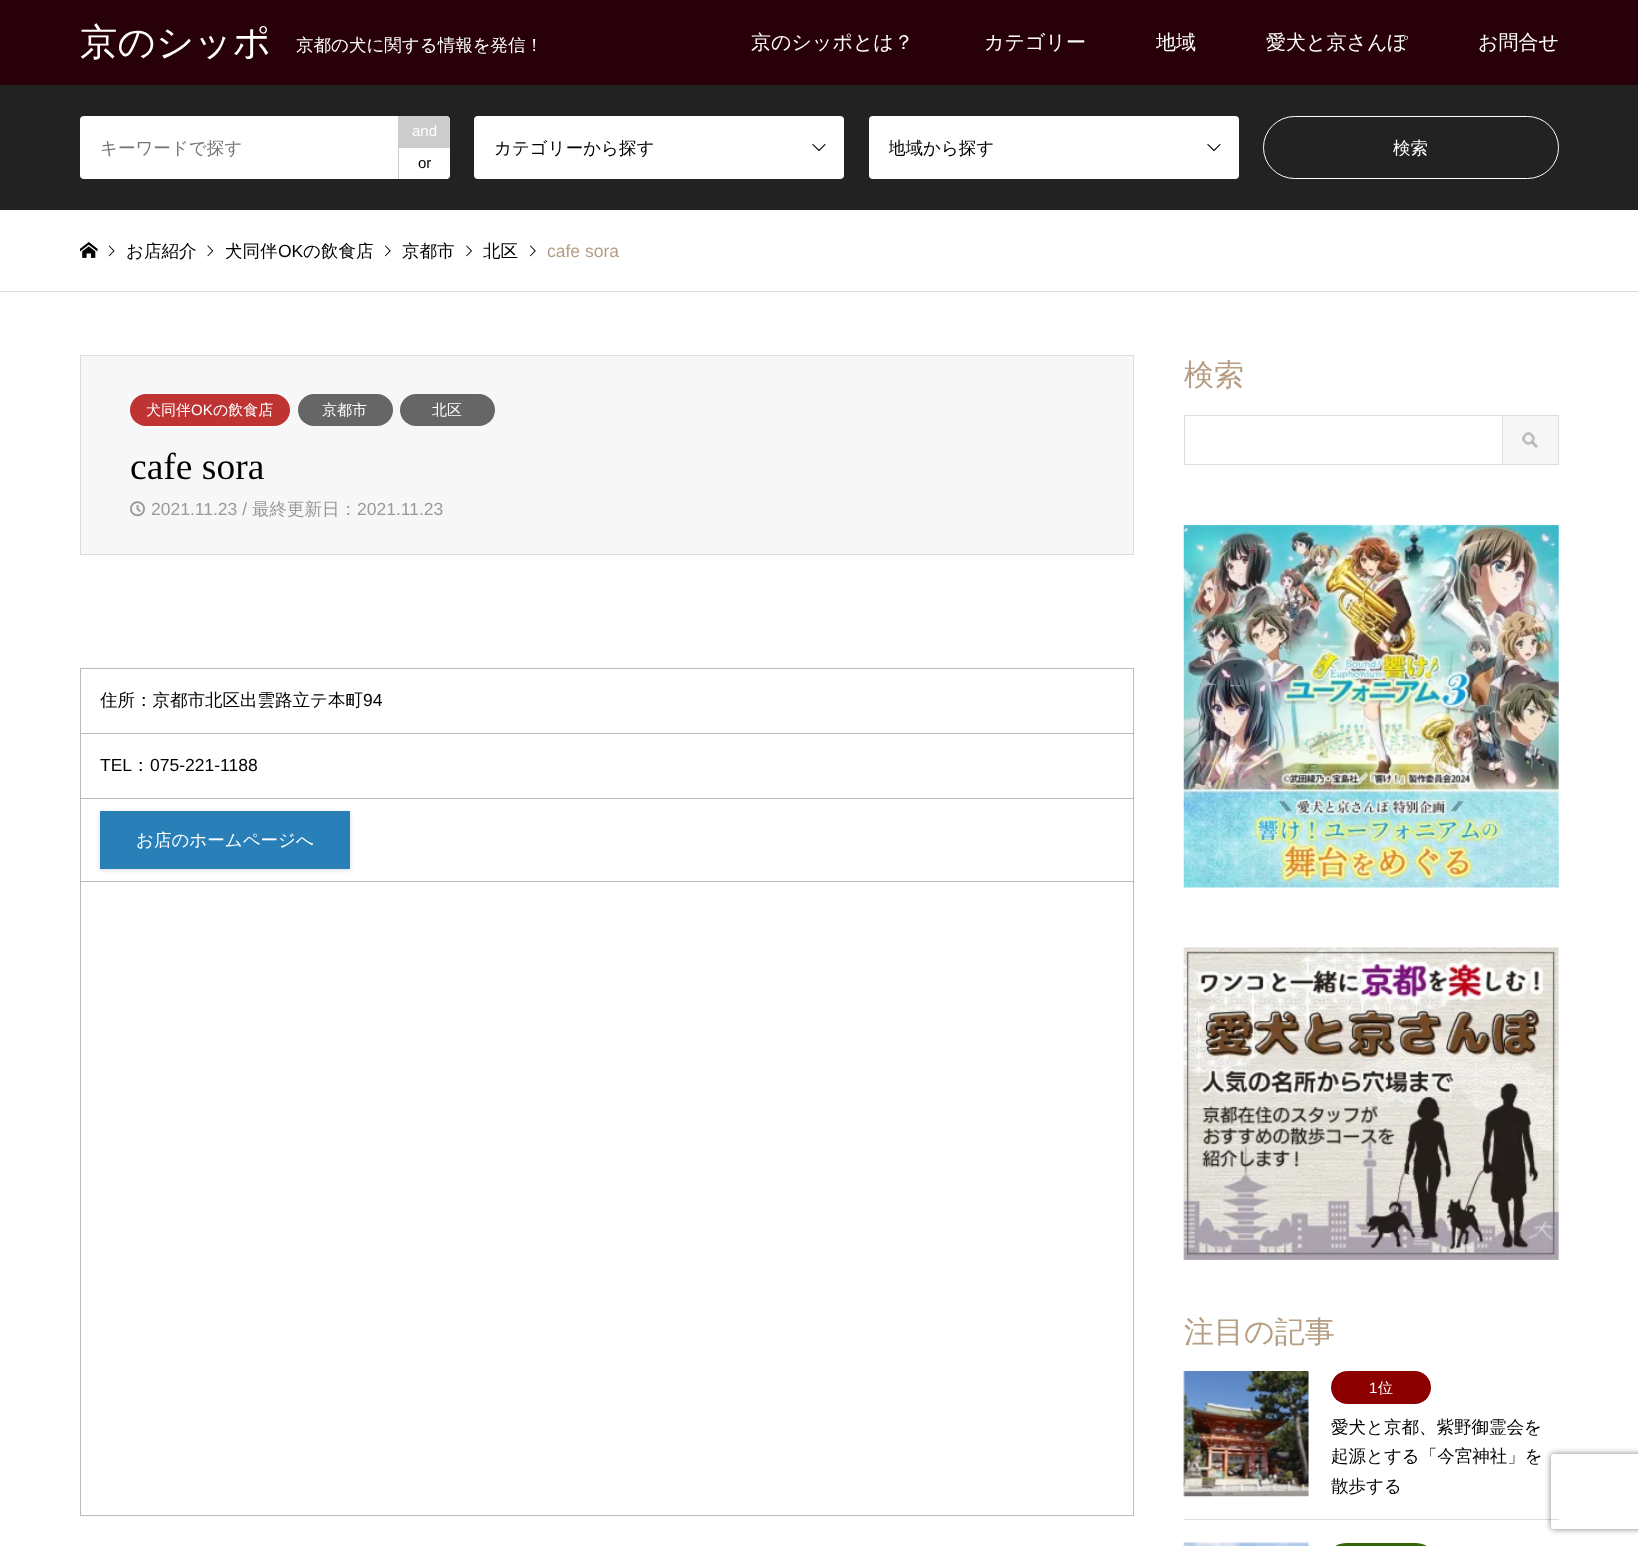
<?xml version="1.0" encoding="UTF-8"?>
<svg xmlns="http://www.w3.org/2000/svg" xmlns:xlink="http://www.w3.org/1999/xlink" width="1638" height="1546">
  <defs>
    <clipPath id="clip1"><path d="M 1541 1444 h 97 v 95 h -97 z m 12.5 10 h 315 c 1.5 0 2.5 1 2.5 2.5 v 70 c 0 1.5 -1 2.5 -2.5 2.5 h -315 c -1.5 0 -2.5 -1 -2.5 -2.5 v -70 c 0 -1.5 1 -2.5 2.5 -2.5 z" clip-rule="evenodd" /></clipPath>
    <clipPath id="clip2"><rect x="889" y="116" width="310" height="63" /></clipPath>
  </defs>
  <rect width="100%" height="100%" fill="#ffffff" />
  <rect width="1638" height="85" fill="#28000a" />
  <rect y="85" width="1638" height="125" fill="#222222" />
  <rect x="80" y="116" width="370" height="63" rx="4" fill="#ffffff" />
  <path d="M 398 116 h 48 c 2 0 4 2 4 4 v 28 h -52 z" fill="#cccccc" />
  <path d="M 398 148 h 52 v 27 c 0 2 -2 4 -4 4 h -48 z" fill="#ffffff" />
  <rect x="398" y="148" width="1" height="31" fill="#cccccc" />
  <rect x="474" y="116" width="370" height="63" rx="4" fill="#ffffff" />
  <image x="812" y="144" width="14" height="7" xlink:href="image1.png" />
  <rect x="869" y="116" width="370" height="63" rx="4" fill="#ffffff" />
  <image x="1207" y="144" width="14" height="7" xlink:href="image1.png" />
  <rect x="1263.5" y="116.5" width="295" height="62" rx="31" fill="none" stroke="#ffffff" />
  <rect y="291" width="1638" height="1" fill="#dddddd" />
  <image x="80" y="242" width="18" height="16" xlink:href="image2.png" />
  <image x="108" y="245" width="7" height="12" xlink:href="image3.png" />
  <image x="207" y="245" width="7" height="12" xlink:href="image4.png" />
  <image x="385" y="245" width="6" height="12" xlink:href="image5.png" />
  <image x="466" y="245" width="6" height="12" xlink:href="image6.png" />
  <image x="530" y="245" width="6" height="12" xlink:href="image5.png" />
  <rect x="80.5" y="355.5" width="1053" height="199" fill="#f7f7f7" stroke="#dddddd" />
  <rect x="130" y="394" width="160" height="32" rx="16" fill="#bf3333" />
  <rect x="298" y="394" width="95" height="32" rx="16" fill="#666666" />
  <rect x="400" y="394" width="95" height="32" rx="16" fill="#666666" />
  <image x="130" y="501" width="15" height="16" xlink:href="image7.png" />
  <rect x="80" y="668" width="1054" height="1" fill="#bbbbbb" />
  <rect x="80" y="733" width="1054" height="1" fill="#bbbbbb" />
  <rect x="80" y="798" width="1054" height="1" fill="#bbbbbb" />
  <rect x="80" y="881" width="1054" height="1" fill="#bbbbbb" />
  <rect x="1133" y="881" width="1" height="635" fill="#bbbbbb" />
  <rect x="1133" y="798" width="1" height="85" fill="#bbbbbb" />
  <rect x="1133" y="733" width="1" height="66" fill="#bbbbbb" />
  <rect x="1133" y="668" width="1" height="66" fill="#bbbbbb" />
  <rect x="80" y="1515" width="1054" height="1" fill="#bbbbbb" />
  <rect x="80" y="881" width="1" height="635" fill="#bbbbbb" />
  <rect x="80" y="798" width="1" height="85" fill="#bbbbbb" />
  <rect x="80" y="733" width="1" height="66" fill="#bbbbbb" />
  <rect x="80" y="668" width="1" height="66" fill="#bbbbbb" />
  <rect x="100" y="813" width="250" height="57" fill="#000000" fill-opacity="0.15" filter="blur(2px)" />
  <rect x="100" y="811" width="250" height="58" fill="#2980b9" />
  <rect x="1184.5" y="415.5" width="318" height="49" fill="none" stroke="#dddddd" />
  <rect x="1503" y="416" width="55" height="48" fill="#f7f7f7" />
  <image x="1522" y="432" width="16" height="16" xlink:href="image8.png" />
  <rect x="1503" y="415" width="56" height="1" fill="#dddddd" />
  <rect x="1558" y="415" width="1" height="50" fill="#dddddd" />
  <rect x="1503" y="464" width="56" height="1" fill="#dddddd" />
  <image x="1183" y="524" width="376" height="364" xlink:href="image9.png" />
  <image x="1183" y="947" width="376" height="313" xlink:href="image10.png" />
  <rect x="1184" y="1519" width="375" height="1" fill="#dddddd" />
  <image x="1183" y="1371" width="126" height="126" xlink:href="image11.png" />
  <rect x="1331" y="1371" width="100" height="33" rx="16.5" fill="#8c0000" />
  <image x="1183" y="1542" width="126" height="4" xlink:href="image12.png" />
  <rect x="1331" y="1543" width="100" height="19" rx="16" fill="#336601" />
  <g clip-path="url(#clip1)">
    <rect x="1551" y="1454" width="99" height="75" rx="2.5" fill="#808080" filter="blur(3px)" />
  </g>
  <text x="80" y="55" style="font-family: WenQuanYi Zen Hei; font-size: 37.5px; font-weight: 500; fill: #ffffff">京のシッポ</text>
  <text x="296" y="51" style="font-family: WenQuanYi Zen Hei; font-size: 17.5px; font-weight: 500; fill: #ffffff">京都の犬に関する情報を発信！</text>
  <text x="751" y="49" style="font-family: WenQuanYi Zen Hei; font-size: 20px; font-weight: 500; fill: #ffffff">京のシッポとは？</text>
  <text x="984" y="49" style="font-family: WenQuanYi Zen Hei; font-size: 20px; font-weight: 500; fill: #ffffff">カテゴリー</text>
  <text x="1156" y="49" style="font-family: WenQuanYi Zen Hei; font-size: 20px; font-weight: 500; fill: #ffffff">地域</text>
  <text x="1266" y="49" style="font-family: WenQuanYi Zen Hei; font-size: 20px; font-weight: 500; fill: #ffffff">愛犬と京さんぽ</text>
  <text x="1478" y="49" style="font-family: WenQuanYi Zen Hei; font-size: 20px; font-weight: 500; fill: #ffffff">お問合せ</text>
  <text x="100" y="154" style="font-family: WenQuanYi Zen Hei; font-size: 17.5px; font-weight: 500; fill: #757575">キーワードで探す</text>
  <text x="412" y="136" style="font-family: Liberation Sans; font-size: 15px; fill: #ffffff">and</text>
  <text x="418" y="168" style="font-family: Liberation Sans; font-size: 15px; fill: #000000">or</text>
  <text x="494" y="154" style="font-family: WenQuanYi Zen Hei; font-size: 17.5px; font-weight: 500; fill: #000000">カテゴリーから探す</text>
  <g clip-path="url(#clip2)">
    <text x="888" y="154" style="font-family: WenQuanYi Zen Hei; font-size: 17.5px; font-weight: 500; fill: #000000">地域から探す</text>
  </g>
  <text x="1393" y="154" style="font-family: WenQuanYi Zen Hei; font-size: 17.5px; font-weight: 500; fill: #ffffff">検索</text>
  <text x="126" y="257" style="font-family: WenQuanYi Zen Hei; font-size: 17.5px; font-weight: 500; fill: #000000">お店紹介</text>
  <text x="225" y="257" style="font-family: WenQuanYi Zen Hei; font-size: 17.5px; font-weight: 500; fill: #000000">犬同伴</text>
  <text x="278" y="257" style="font-family: Liberation Sans; font-size: 17.5px; fill: #000000">OK</text>
  <text x="303" y="257" style="font-family: WenQuanYi Zen Hei; font-size: 17.5px; font-weight: 500; fill: #000000">の飲食店</text>
  <text x="402" y="257" style="font-family: WenQuanYi Zen Hei; font-size: 17.5px; font-weight: 500; fill: #000000">京都市</text>
  <text x="483" y="257" style="font-family: WenQuanYi Zen Hei; font-size: 17.5px; font-weight: 500; fill: #000000">北区</text>
  <text x="547" y="257" style="font-family: Liberation Sans; font-size: 17.5px; fill: #b69e84">cafe sora</text>
  <text x="146" y="415" style="font-family: WenQuanYi Zen Hei; font-size: 15px; font-weight: 500; fill: #ffffff">犬同伴</text>
  <text x="191" y="415" style="font-family: Liberation Sans; font-size: 15px; fill: #ffffff">OK</text>
  <text x="213" y="415" style="font-family: WenQuanYi Zen Hei; font-size: 15px; font-weight: 500; fill: #ffffff">の飲食店</text>
  <text x="322" y="415" style="font-family: WenQuanYi Zen Hei; font-size: 15px; font-weight: 500; fill: #ffffff">京都市</text>
  <text x="432" y="415" style="font-family: WenQuanYi Zen Hei; font-size: 15px; font-weight: 500; fill: #ffffff">北区</text>
  <text x="130" y="479" style="font-family: Liberation Serif; font-size: 37.5px; fill: #000000">cafe sora</text>
  <text x="151" y="515" style="font-family: Liberation Sans; font-size: 17.5px; fill: #999999">2021.11.23 /</text>
  <text x="252" y="515" style="font-family: WenQuanYi Zen Hei; font-size: 17.5px; font-weight: 500; fill: #999999">最終更新日：</text>
  <text x="357" y="515" style="font-family: Liberation Sans; font-size: 17.5px; fill: #999999">2021.11.23</text>
  <text x="100" y="706" style="font-family: WenQuanYi Zen Hei; font-size: 17.5px; font-weight: 500; fill: #000000">住所：京都市北区出雲路立テ本町</text>
  <text x="363" y="706" style="font-family: Liberation Sans; font-size: 17.5px; fill: #000000">94</text>
  <text x="100" y="771" style="font-family: Liberation Sans; font-size: 17.5px; fill: #000000">TEL</text>
  <text x="132" y="771" style="font-family: WenQuanYi Zen Hei; font-size: 17.5px; font-weight: 500; fill: #000000">：</text>
  <text x="150" y="771" style="font-family: Liberation Sans; font-size: 17.5px; fill: #000000">075-221-1188</text>
  <text x="136" y="846" style="font-family: WenQuanYi Zen Hei; font-size: 17.5px; font-weight: 500; fill: #ffffff">お店のホームページへ</text>
  <text x="1184" y="385" style="font-family: WenQuanYi Zen Hei; font-size: 30px; font-weight: 500; fill: #b69e84">検索</text>
  <text x="1184" y="1342" style="font-family: WenQuanYi Zen Hei; font-size: 30px; font-weight: 500; fill: #b69e84">注目の記事</text>
  <text x="1369" y="1393" style="font-family: Liberation Sans; font-size: 15px; fill: #ffffff">1</text>
  <text x="1378" y="1393" style="font-family: WenQuanYi Zen Hei; font-size: 15px; font-weight: 500; fill: #ffffff">位</text>
  <text x="1331" y="1433" style="font-family: WenQuanYi Zen Hei; font-size: 17.5px; font-weight: 500; fill: #000000">愛犬と京都、紫野御霊会を</text>
  <text x="1331" y="1462" style="font-family: WenQuanYi Zen Hei; font-size: 17.5px; font-weight: 500; fill: #000000">起源とする「今宮神社」を</text>
  <text x="1331" y="1492" style="font-family: WenQuanYi Zen Hei; font-size: 17.5px; font-weight: 500; fill: #000000">散歩する</text>
</svg>
